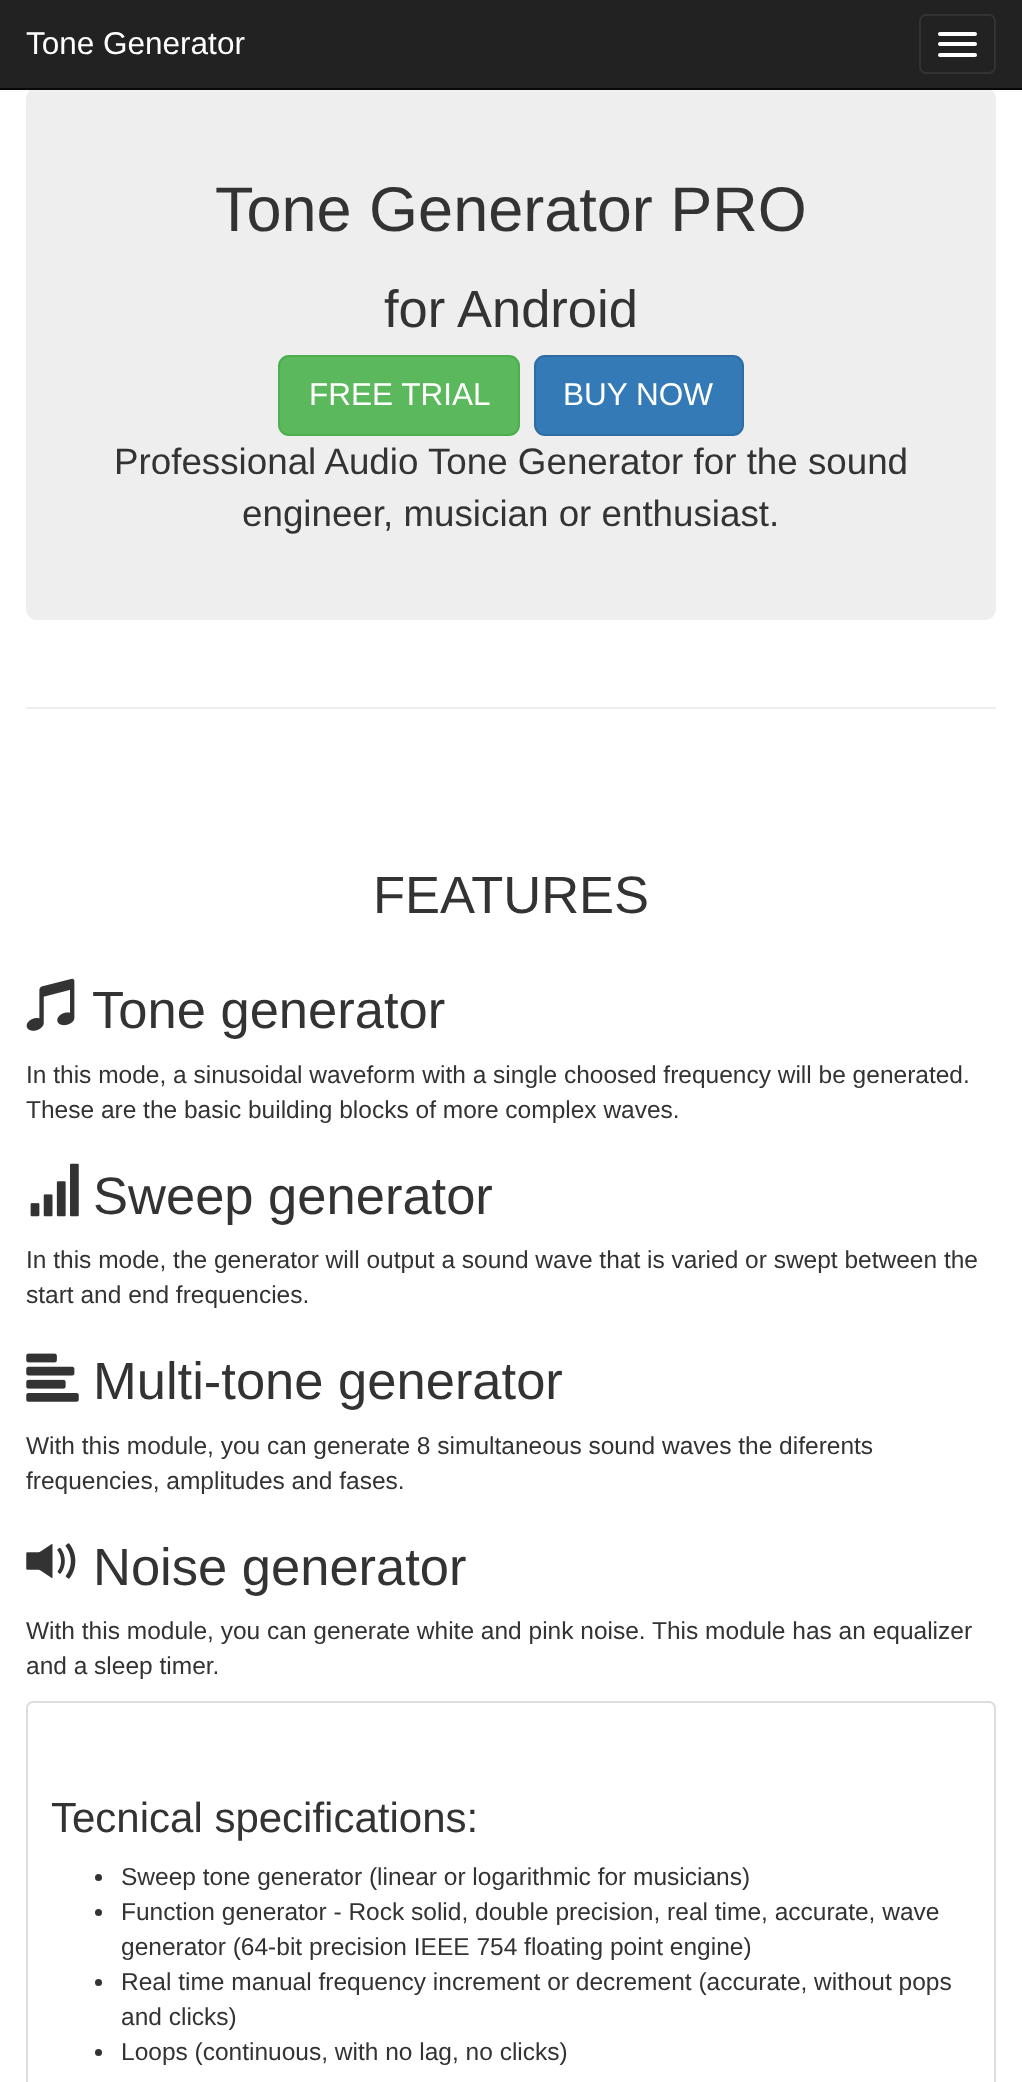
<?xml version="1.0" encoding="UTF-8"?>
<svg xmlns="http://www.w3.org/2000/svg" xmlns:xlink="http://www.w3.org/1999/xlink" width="1022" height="2082">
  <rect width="100%" height="100%" fill="#ffffff" />
  <rect width="1022" height="88" fill="#222222" />
  <rect x="26" y="88" width="970" height="532" rx="11" fill="#eeeeee" />
  <rect y="88" width="1022" height="2" fill="#080808" />
  <rect x="920" y="15" width="75" height="58" rx="6" fill="none" stroke="#333333" stroke-width="2" />
  <rect x="938" y="32" width="39" height="4" rx="2" fill="#ffffff" />
  <rect x="938" y="42" width="39" height="4" rx="2" fill="#ffffff" />
  <rect x="938" y="53" width="39" height="4" rx="2" fill="#ffffff" />
  <rect x="279" y="356" width="240" height="79" rx="10" fill="#5cb85c" stroke="#4cae4c" stroke-width="2" />
  <rect x="535" y="356" width="208" height="79" rx="10" fill="#337ab7" stroke="#2e6da4" stroke-width="2" />
  <rect x="26" y="707" width="970" height="2" fill="#eeeeee" />
  <image x="26" y="978" width="49" height="53" xlink:href="image1.png" />
  <image x="30" y="1163" width="49" height="54" xlink:href="image2.png" />
  <image x="26" y="1353" width="53" height="49" xlink:href="image3.png" />
  <image x="26" y="1543" width="50" height="36" xlink:href="image4.png" />
  <rect x="27" y="1702" width="968" height="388" rx="6" fill="none" stroke="#dddddd" stroke-width="2" />
  <circle cx="98.5" cy="1877.5" r="3.5" fill="#333333" />
  <circle cx="98.5" cy="1912.5" r="3.5" fill="#333333" />
  <circle cx="98.5" cy="1982.5" r="3.5" fill="#333333" />
  <circle cx="98.5" cy="2052.5" r="3.5" fill="#333333" />
  <text x="26" y="54" style="font-family: Liberation Sans; font-size: 31.5px; fill: #ffffff">Tone Generator</text>
  <text x="215" y="231" style="font-family: Liberation Sans; font-size: 63px; fill: #333333">Tone Generator PRO</text>
  <text x="384" y="327" style="font-family: Liberation Sans; font-size: 52.5px; fill: #333333">for Android</text>
  <text x="309" y="405" style="font-family: Liberation Sans; font-size: 31.5px; fill: #ffffff">FREE TRIAL</text>
  <text x="563" y="405" style="font-family: Liberation Sans; font-size: 31.5px; fill: #ffffff">BUY NOW</text>
  <text x="114" y="474" style="font-family: Liberation Sans; font-size: 36.75px; fill: #333333">Professional Audio Tone Generator for the sound</text>
  <text x="242" y="526" style="font-family: Liberation Sans; font-size: 36.75px; fill: #333333">engineer, musician or enthusiast.</text>
  <text x="373" y="913" style="font-family: Liberation Sans; font-size: 52.5px; fill: #333333">FEATURES</text>
  <text x="92" y="1028" style="font-family: Liberation Sans; font-size: 52.5px; fill: #333333">Tone generator</text>
  <text x="26" y="1083" style="font-family: Liberation Sans; font-size: 24.5px; fill: #333333">In this mode, a sinusoidal waveform with a single choosed frequency will be generated.</text>
  <text x="26" y="1118" style="font-family: Liberation Sans; font-size: 24.5px; fill: #333333">These are the basic building blocks of more complex waves.</text>
  <text x="93" y="1214" style="font-family: Liberation Sans; font-size: 52.5px; fill: #333333">Sweep generator</text>
  <text x="26" y="1268" style="font-family: Liberation Sans; font-size: 24.5px; fill: #333333">In this mode, the generator will output a sound wave that is varied or swept between the</text>
  <text x="26" y="1303" style="font-family: Liberation Sans; font-size: 24.5px; fill: #333333">start and end frequencies.</text>
  <text x="93" y="1399" style="font-family: Liberation Sans; font-size: 52.5px; fill: #333333">Multi-tone generator</text>
  <text x="26" y="1454" style="font-family: Liberation Sans; font-size: 24.5px; fill: #333333">With this module, you can generate 8 simultaneous sound waves the diferents</text>
  <text x="26" y="1489" style="font-family: Liberation Sans; font-size: 24.5px; fill: #333333">frequencies, amplitudes and fases.</text>
  <text x="93" y="1585" style="font-family: Liberation Sans; font-size: 52.5px; fill: #333333">Noise generator</text>
  <text x="26" y="1639" style="font-family: Liberation Sans; font-size: 24.5px; fill: #333333">With this module, you can generate white and pink noise. This module has an equalizer</text>
  <text x="26" y="1674" style="font-family: Liberation Sans; font-size: 24.5px; fill: #333333">and a sleep timer.</text>
  <text x="51" y="1832" style="font-family: Liberation Sans; font-size: 42px; fill: #333333">Tecnical specifications:</text>
  <text x="121" y="1885" style="font-family: Liberation Sans; font-size: 24.5px; fill: #333333">Sweep tone generator (linear or logarithmic for musicians)</text>
  <text x="121" y="1920" style="font-family: Liberation Sans; font-size: 24.5px; fill: #333333">Function generator - Rock solid, double precision, real time, accurate, wave</text>
  <text x="121" y="1955" style="font-family: Liberation Sans; font-size: 24.5px; fill: #333333">generator (64-bit precision IEEE 754 floating point engine)</text>
  <text x="121" y="1990" style="font-family: Liberation Sans; font-size: 24.5px; fill: #333333">Real time manual frequency increment or decrement (accurate, without pops</text>
  <text x="121" y="2025" style="font-family: Liberation Sans; font-size: 24.5px; fill: #333333">and clicks)</text>
  <text x="121" y="2060" style="font-family: Liberation Sans; font-size: 24.5px; fill: #333333">Loops (continuous, with no lag, no clicks)</text>
</svg>
